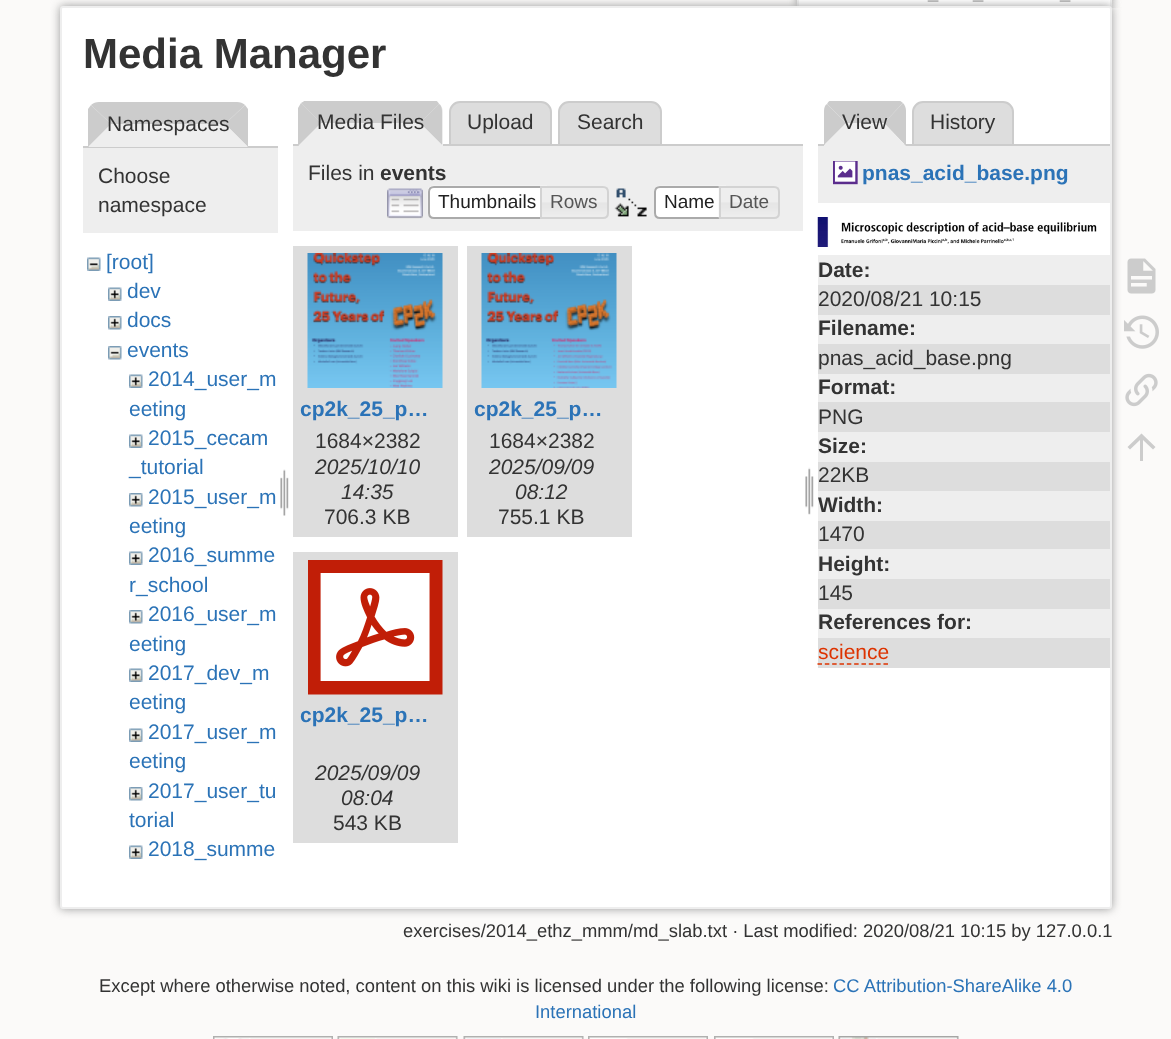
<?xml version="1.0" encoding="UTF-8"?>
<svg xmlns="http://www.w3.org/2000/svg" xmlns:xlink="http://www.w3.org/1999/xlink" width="1171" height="1039">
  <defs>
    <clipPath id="clip1"><rect x="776" y="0" width="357" height="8" /></clipPath>
    <clipPath id="clip2"><rect x="293" y="101" width="510" height="45" /></clipPath>
    <clipPath id="clip3"><rect x="818" y="101" width="315" height="45" /></clipPath>
  </defs>
  <rect width="100%" height="100%" fill="#fbfaf9" />
  <g clip-path="url(#clip1)">
    <rect x="797" y="-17" width="315" height="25" rx="3" fill="#999999" filter="blur(4.5px)" />
  </g>
  <rect x="798" width="312" height="7" fill="#ffffff" />
  <rect x="1110" width="2" height="8" fill="#eeeeee" />
  <rect x="797" width="2" height="8" fill="#eeeeee" />
  <rect x="60" y="6" width="1052" height="903" rx="3" fill="#999999" filter="blur(5px)" />
  <rect x="61" y="7" width="1050" height="901" rx="2" fill="#ffffff" stroke="#eeeeee" stroke-width="2" />
  <path d="M 99 102 h 138 c 3 0 6 1 8 3 l -20 19 h -114 l -20 -19 c 2 -2 5 -3 8 -3 z" fill="#cccccc" />
  <rect x="83" y="146" width="195" height="2" fill="#cccccc" />
  <path d="M 245 105 l -20 19 l 23 23 v -38 z" fill="#cccccc" />
  <path d="M 248 147 l -23 -23 h -114 l -23 23 z" fill="#eeeeee" />
  <path d="M 88 147 l 23 -23 l -20 -19 l -3 4 z" fill="#cccccc" />
  <rect x="83" y="148" width="195" height="85" fill="#eeeeee" />
  <image x="87" y="257" width="14" height="14" xlink:href="image1.png" />
  <image x="108" y="287" width="14" height="14" xlink:href="image2.png" />
  <image x="108" y="316" width="14" height="14" xlink:href="image3.png" />
  <image x="108" y="346" width="14" height="14" xlink:href="image4.png" />
  <image x="129" y="374" width="14" height="14" xlink:href="image2.png" />
  <image x="129" y="434" width="14" height="14" xlink:href="image2.png" />
  <image x="129" y="493" width="14" height="14" xlink:href="image3.png" />
  <image x="129" y="551" width="14" height="14" xlink:href="image2.png" />
  <image x="129" y="610" width="14" height="14" xlink:href="image3.png" />
  <image x="129" y="668" width="14" height="14" xlink:href="image2.png" />
  <image x="129" y="728" width="14" height="14" xlink:href="image2.png" />
  <image x="129" y="787" width="14" height="14" xlink:href="image3.png" />
  <image x="129" y="845" width="14" height="14" xlink:href="image2.png" />
  <image x="280" y="469" width="9" height="47" xlink:href="image5.png" />
  <path d="M 460 102 h 81 c 5.5 0 10 4.5 10 10 v 33 h -101 v -33 c 0 -5.5 4.5 -10 10 -10 z" fill="#dddddd" stroke="#cccccc" stroke-width="2" />
  <path d="M 569 102 h 82 c 5.5 0 10 4.5 10 10 v 33 h -102 v -33 c 0 -5.5 4.5 -10 10 -10 z" fill="#dddddd" stroke="#cccccc" stroke-width="2" />
  <rect x="293" y="144" width="510" height="2" fill="#cccccc" />
  <path d="M 310 101 h 122 c 6 0 11 5 11 11 v 34 h -144 v -34 c 0 -6 5 -11 11 -11 z" fill="#eeeeee" />
  <g clip-path="url(#clip2)">
    <path d="M 435 100 h -129 l -5 3 l 20 20 h 99 l 19 -19 c -1 -2 -2 -3 -4 -4 z" fill="#cccccc" />
  </g>
  <path d="M 439 104 l -19 19 l 22 22 v -34 c 0 -3 -1 -6 -3 -7 z" fill="#cccccc" />
  <path d="M 442 145 l -22 -22 h -99 l -23 23 h 144 z" fill="#eeeeee" />
  <path d="M 298 146 l 23 -23 l -20 -20 l -3 5 z" fill="#cccccc" />
  <rect x="293" y="146" width="510" height="85" fill="#eeeeee" />
  <image x="387" y="188" width="36" height="31" xlink:href="image6.png" />
  <path d="M 434 186 h 114 v 33 h -114 c -3.5 0 -6 -2.5 -6 -6 v -21 c 0 -3.5 2.5 -6 6 -6 z" fill="#ffffff" />
  <image x="427" y="185" width="120" height="31" xlink:href="image7.png" />
  <path d="M 434 187 h 113 v 31 h -113 c -3 0 -5 -2 -5 -5 v -21 c 0 -3 2 -5 5 -5 z" fill="none" stroke="#aaaaaa" stroke-width="2" />
  <image x="542" y="186" width="67" height="32" xlink:href="image8.png" />
  <path d="M 541 187 h 62 c 3 0 5 2 5 5 v 21 c 0 3 -2 5 -5 5 h -62 z" fill="none" stroke="#d3d3d3" stroke-width="2" />
  <image x="614" y="188" width="33" height="29" xlink:href="image9.png" />
  <path d="M 660 186 h 66 v 33 h -66 c -3.5 0 -6 -2.5 -6 -6 v -21 c 0 -3.5 2.5 -6 6 -6 z" fill="#ffffff" />
  <image x="654" y="185" width="72" height="5" xlink:href="image10.png" />
  <path d="M 660 187 h 65 v 31 h -65 c -3 0 -5 -2 -5 -5 v -21 c 0 -3 2 -5 5 -5 z" fill="none" stroke="#aaaaaa" stroke-width="2" />
  <image x="718" y="186" width="62" height="33" xlink:href="image11.png" />
  <path d="M 720 187 h 54 c 3 0 5 2 5 5 v 21 c 0 3 -2 5 -5 5 h -54 z" fill="none" stroke="#d3d3d3" stroke-width="2" />
  <rect x="293" y="246" width="165" height="291" fill="#dddddd" />
  <image x="307" y="253" width="136" height="135" xlink:href="image12.png" />
  <rect x="467" y="246" width="165" height="291" fill="#dddddd" />
  <image x="481" y="253" width="136" height="135" xlink:href="image13.png" />
  <rect x="293" y="552" width="165" height="291" fill="#dddddd" />
  <image x="308" y="560" width="135" height="135" xlink:href="image14.png" />
  <image x="805" y="467" width="9" height="48" xlink:href="image15.png" />
  <g clip-path="url(#clip3)">
    <path d="M 899 100 h -68 c -2 1 -3 2 -4 4 l 19 19 h 38 l 19 -20 z" fill="#cccccc" />
  </g>
  <path d="M 923 102 h 80 c 5.5 0 10 4.5 10 10 v 33 h -100 v -33 c 0 -5.5 4.5 -10 10 -10 z" fill="#dddddd" stroke="#cccccc" stroke-width="2" />
  <rect x="818" y="144" width="292" height="2" fill="#cccccc" />
  <path d="M 903 103 l -19 20 l 22 23 v -35 c 0 -3 -1 -6 -3 -8 z" fill="#cccccc" />
  <path d="M 906 146 l -22 -23 h -38 l -22 22 v 1 z" fill="#eeeeee" />
  <path d="M 824 145 l 22 -22 l -19 -19 c -2 1 -3 4 -3 7 z" fill="#cccccc" />
  <rect x="818" y="146" width="292" height="57" fill="#eeeeee" />
  <image x="833" y="161" width="25" height="24" xlink:href="image16.png" />
  <image x="817" y="217" width="280" height="30" xlink:href="image17.png" />
  <rect x="818" y="255" width="292" height="30" fill="#eeeeee" />
  <rect x="818" y="285" width="292" height="30" fill="#dddddd" />
  <rect x="818" y="315" width="292" height="29" fill="#eeeeee" />
  <rect x="818" y="344" width="292" height="30" fill="#dddddd" />
  <rect x="818" y="374" width="292" height="28" fill="#eeeeee" />
  <rect x="818" y="402" width="292" height="30" fill="#dddddd" />
  <rect x="818" y="432" width="292" height="30" fill="#eeeeee" />
  <rect x="818" y="462" width="292" height="29" fill="#dddddd" />
  <rect x="818" y="491" width="292" height="30" fill="#eeeeee" />
  <rect x="818" y="521" width="292" height="28" fill="#dddddd" />
  <rect x="818" y="549" width="292" height="30" fill="#eeeeee" />
  <rect x="818" y="579" width="292" height="30" fill="#dddddd" />
  <rect x="818" y="609" width="292" height="29" fill="#eeeeee" />
  <rect x="818" y="638" width="292" height="30" fill="#dddddd" />
  <path d="M 817.5 664 h 70.5" fill="none" stroke="#dd3300" stroke-width="1.5" stroke-dasharray="4.5 2.83" />
  <image x="1127" y="258" width="29" height="36" xlink:href="image18.png" />
  <image x="1124" y="315" width="35" height="34" xlink:href="image19.png" />
  <image x="1125" y="373" width="33" height="34" xlink:href="image20.png" />
  <path d="M 1143 461 h -3 v -21 l -10 9.5 l -2.5 -2.5 l 14 -13.5 l 14 13.5 l -2.5 2.5 l -10 -9.5 z" fill="#cccccc" />
  <image x="213" y="1036" width="120" height="3" xlink:href="image21.png" />
  <image x="337" y="1036" width="121" height="3" xlink:href="image22.png" />
  <image x="463" y="1036" width="121" height="3" xlink:href="image23.png" />
  <image x="588" y="1036" width="120" height="3" xlink:href="image24.png" />
  <image x="714" y="1036" width="120" height="3" xlink:href="image24.png" />
  <image x="838" y="1036" width="121" height="3" xlink:href="image25.png" />
  <text x="928" y="-2" style="font-family: Liberation Sans; font-size: 18.4px; fill: #999999">_</text>
  <text x="973" y="-2" style="font-family: Liberation Sans; font-size: 18.4px; fill: #999999">_</text>
  <text x="1060" y="-2" style="font-family: Liberation Sans; font-size: 18.4px; fill: #999999">_</text>
  <text x="83" y="68" style="font-family: Liberation Sans; font-size: 42px; font-weight: bold; fill: #333333">Media Manager</text>
  <text x="107" y="131" style="font-family: Liberation Sans; font-size: 21px; fill: #333333">Namespaces</text>
  <text x="98" y="183" style="font-family: Liberation Sans; font-size: 21px; fill: #333333">Choose</text>
  <text x="98" y="212" style="font-family: Liberation Sans; font-size: 21px; fill: #333333">namespace</text>
  <text x="106" y="269" style="font-family: Liberation Sans; font-size: 21px; fill: #2b73b7">[root]</text>
  <text x="127" y="298" style="font-family: Liberation Sans; font-size: 21px; fill: #2b73b7">dev</text>
  <text x="127" y="327" style="font-family: Liberation Sans; font-size: 21px; fill: #2b73b7">docs</text>
  <text x="127" y="357" style="font-family: Liberation Sans; font-size: 21px; fill: #2b73b7">events</text>
  <text x="148" y="386" style="font-family: Liberation Sans; font-size: 21px; fill: #2b73b7">2014_user_m</text>
  <text x="129" y="416" style="font-family: Liberation Sans; font-size: 21px; fill: #2b73b7">eeting</text>
  <text x="148" y="445" style="font-family: Liberation Sans; font-size: 21px; fill: #2b73b7">2015_cecam</text>
  <text x="129" y="474" style="font-family: Liberation Sans; font-size: 21px; fill: #2b73b7">_tutorial</text>
  <text x="148" y="504" style="font-family: Liberation Sans; font-size: 21px; fill: #2b73b7">2015_user_m</text>
  <text x="129" y="533" style="font-family: Liberation Sans; font-size: 21px; fill: #2b73b7">eeting</text>
  <text x="148" y="562" style="font-family: Liberation Sans; font-size: 21px; fill: #2b73b7">2016_summe</text>
  <text x="129" y="592" style="font-family: Liberation Sans; font-size: 21px; fill: #2b73b7">r_school</text>
  <text x="148" y="621" style="font-family: Liberation Sans; font-size: 21px; fill: #2b73b7">2016_user_m</text>
  <text x="129" y="651" style="font-family: Liberation Sans; font-size: 21px; fill: #2b73b7">eeting</text>
  <text x="148" y="680" style="font-family: Liberation Sans; font-size: 21px; fill: #2b73b7">2017_dev_m</text>
  <text x="129" y="709" style="font-family: Liberation Sans; font-size: 21px; fill: #2b73b7">eeting</text>
  <text x="148" y="739" style="font-family: Liberation Sans; font-size: 21px; fill: #2b73b7">2017_user_m</text>
  <text x="129" y="768" style="font-family: Liberation Sans; font-size: 21px; fill: #2b73b7">eeting</text>
  <text x="148" y="798" style="font-family: Liberation Sans; font-size: 21px; fill: #2b73b7">2017_user_tu</text>
  <text x="129" y="827" style="font-family: Liberation Sans; font-size: 21px; fill: #2b73b7">torial</text>
  <text x="148" y="856" style="font-family: Liberation Sans; font-size: 21px; fill: #2b73b7">2018_summe</text>
  <text x="317" y="129" style="font-family: Liberation Sans; font-size: 21px; fill: #333333">Media Files</text>
  <text x="467" y="129" style="font-family: Liberation Sans; font-size: 21px; fill: #333333">Upload</text>
  <text x="577" y="129" style="font-family: Liberation Sans; font-size: 21px; fill: #333333">Search</text>
  <text x="308" y="180" style="font-family: Liberation Sans; font-size: 21px; fill: #333333">Files in</text>
  <text x="380" y="180" style="font-family: Liberation Sans; font-size: 21px; font-weight: bold; fill: #333333">events</text>
  <text x="438" y="208" style="font-family: Liberation Sans; font-size: 19px; fill: #212121">Thumbnails</text>
  <text x="550" y="208" style="font-family: Liberation Sans; font-size: 19px; fill: #555555">Rows</text>
  <text x="664" y="208" style="font-family: Liberation Sans; font-size: 19px; fill: #212121">Name</text>
  <text x="729" y="208" style="font-family: Liberation Sans; font-size: 19px; fill: #555555">Date</text>
  <text x="300" y="416" style="font-family: Liberation Sans; font-size: 21px; font-weight: bold; fill: #2b73b7">cp2k_25_p…</text>
  <text x="315" y="448" style="font-family: Liberation Sans; font-size: 21px; fill: #333333">1684×2382</text>
  <text x="315" y="474" style="font-family: Liberation Sans; font-size: 21px; font-style: italic; fill: #333333">2025/10/10</text>
  <text x="341" y="499" style="font-family: Liberation Sans; font-size: 21px; font-style: italic; fill: #333333">14:35</text>
  <text x="324" y="524" style="font-family: Liberation Sans; font-size: 21px; fill: #333333">706.3 KB</text>
  <text x="474" y="416" style="font-family: Liberation Sans; font-size: 21px; font-weight: bold; fill: #2b73b7">cp2k_25_p…</text>
  <text x="489" y="448" style="font-family: Liberation Sans; font-size: 21px; fill: #333333">1684×2382</text>
  <text x="489" y="474" style="font-family: Liberation Sans; font-size: 21px; font-style: italic; fill: #333333">2025/09/09</text>
  <text x="515" y="499" style="font-family: Liberation Sans; font-size: 21px; font-style: italic; fill: #333333">08:12</text>
  <text x="498" y="524" style="font-family: Liberation Sans; font-size: 21px; fill: #333333">755.1 KB</text>
  <text x="300" y="722" style="font-family: Liberation Sans; font-size: 21px; font-weight: bold; fill: #2b73b7">cp2k_25_p…</text>
  <text x="315" y="780" style="font-family: Liberation Sans; font-size: 21px; font-style: italic; fill: #333333">2025/09/09</text>
  <text x="341" y="805" style="font-family: Liberation Sans; font-size: 21px; font-style: italic; fill: #333333">08:04</text>
  <text x="333" y="830" style="font-family: Liberation Sans; font-size: 21px; fill: #333333">543 KB</text>
  <text x="842" y="129" style="font-family: Liberation Sans; font-size: 21px; fill: #333333">View</text>
  <text x="930" y="129" style="font-family: Liberation Sans; font-size: 21px; fill: #333333">History</text>
  <text x="862" y="180" style="font-family: Liberation Sans; font-size: 21px; font-weight: bold; fill: #2b73b7">pnas_acid_base.png</text>
  <text x="818" y="277" style="font-family: Liberation Sans; font-size: 21px; font-weight: bold; fill: #333333">Date:</text>
  <text x="818" y="306" style="font-family: Liberation Sans; font-size: 21px; fill: #333333">2020/08/21 10:15</text>
  <text x="818" y="335" style="font-family: Liberation Sans; font-size: 21px; font-weight: bold; fill: #333333">Filename:</text>
  <text x="818" y="365" style="font-family: Liberation Sans; font-size: 21px; fill: #333333">pnas_acid_base.png</text>
  <text x="818" y="394" style="font-family: Liberation Sans; font-size: 21px; font-weight: bold; fill: #333333">Format:</text>
  <text x="818" y="424" style="font-family: Liberation Sans; font-size: 21px; fill: #333333">PNG</text>
  <text x="818" y="453" style="font-family: Liberation Sans; font-size: 21px; font-weight: bold; fill: #333333">Size:</text>
  <text x="818" y="482" style="font-family: Liberation Sans; font-size: 21px; fill: #333333">22KB</text>
  <text x="818" y="512" style="font-family: Liberation Sans; font-size: 21px; font-weight: bold; fill: #333333">Width:</text>
  <text x="818" y="541" style="font-family: Liberation Sans; font-size: 21px; fill: #333333">1470</text>
  <text x="818" y="571" style="font-family: Liberation Sans; font-size: 21px; font-weight: bold; fill: #333333">Height:</text>
  <text x="818" y="600" style="font-family: Liberation Sans; font-size: 21px; fill: #333333">145</text>
  <text x="818" y="629" style="font-family: Liberation Sans; font-size: 21px; font-weight: bold; fill: #333333">References for:</text>
  <text x="818" y="659" style="font-family: Liberation Sans; font-size: 21px; fill: #dd3300">science</text>
  <text x="403" y="937" style="font-family: Liberation Sans; font-size: 18.4px; fill: #333333">exercises/2014_ethz_mmm/md_slab.txt · Last modified: 2020/08/21 10:15 by 127.0.0.1</text>
  <text x="99" y="992" style="font-family: Liberation Sans; font-size: 18.4px; fill: #333333">Except where otherwise noted, content on this wiki is licensed under the following license:</text>
  <text x="833" y="992" style="font-family: Liberation Sans; font-size: 18.4px; fill: #2b73b7">CC Attribution-ShareAlike 4.0</text>
  <text x="535" y="1018" style="font-family: Liberation Sans; font-size: 18.4px; fill: #2b73b7">International</text>
</svg>
